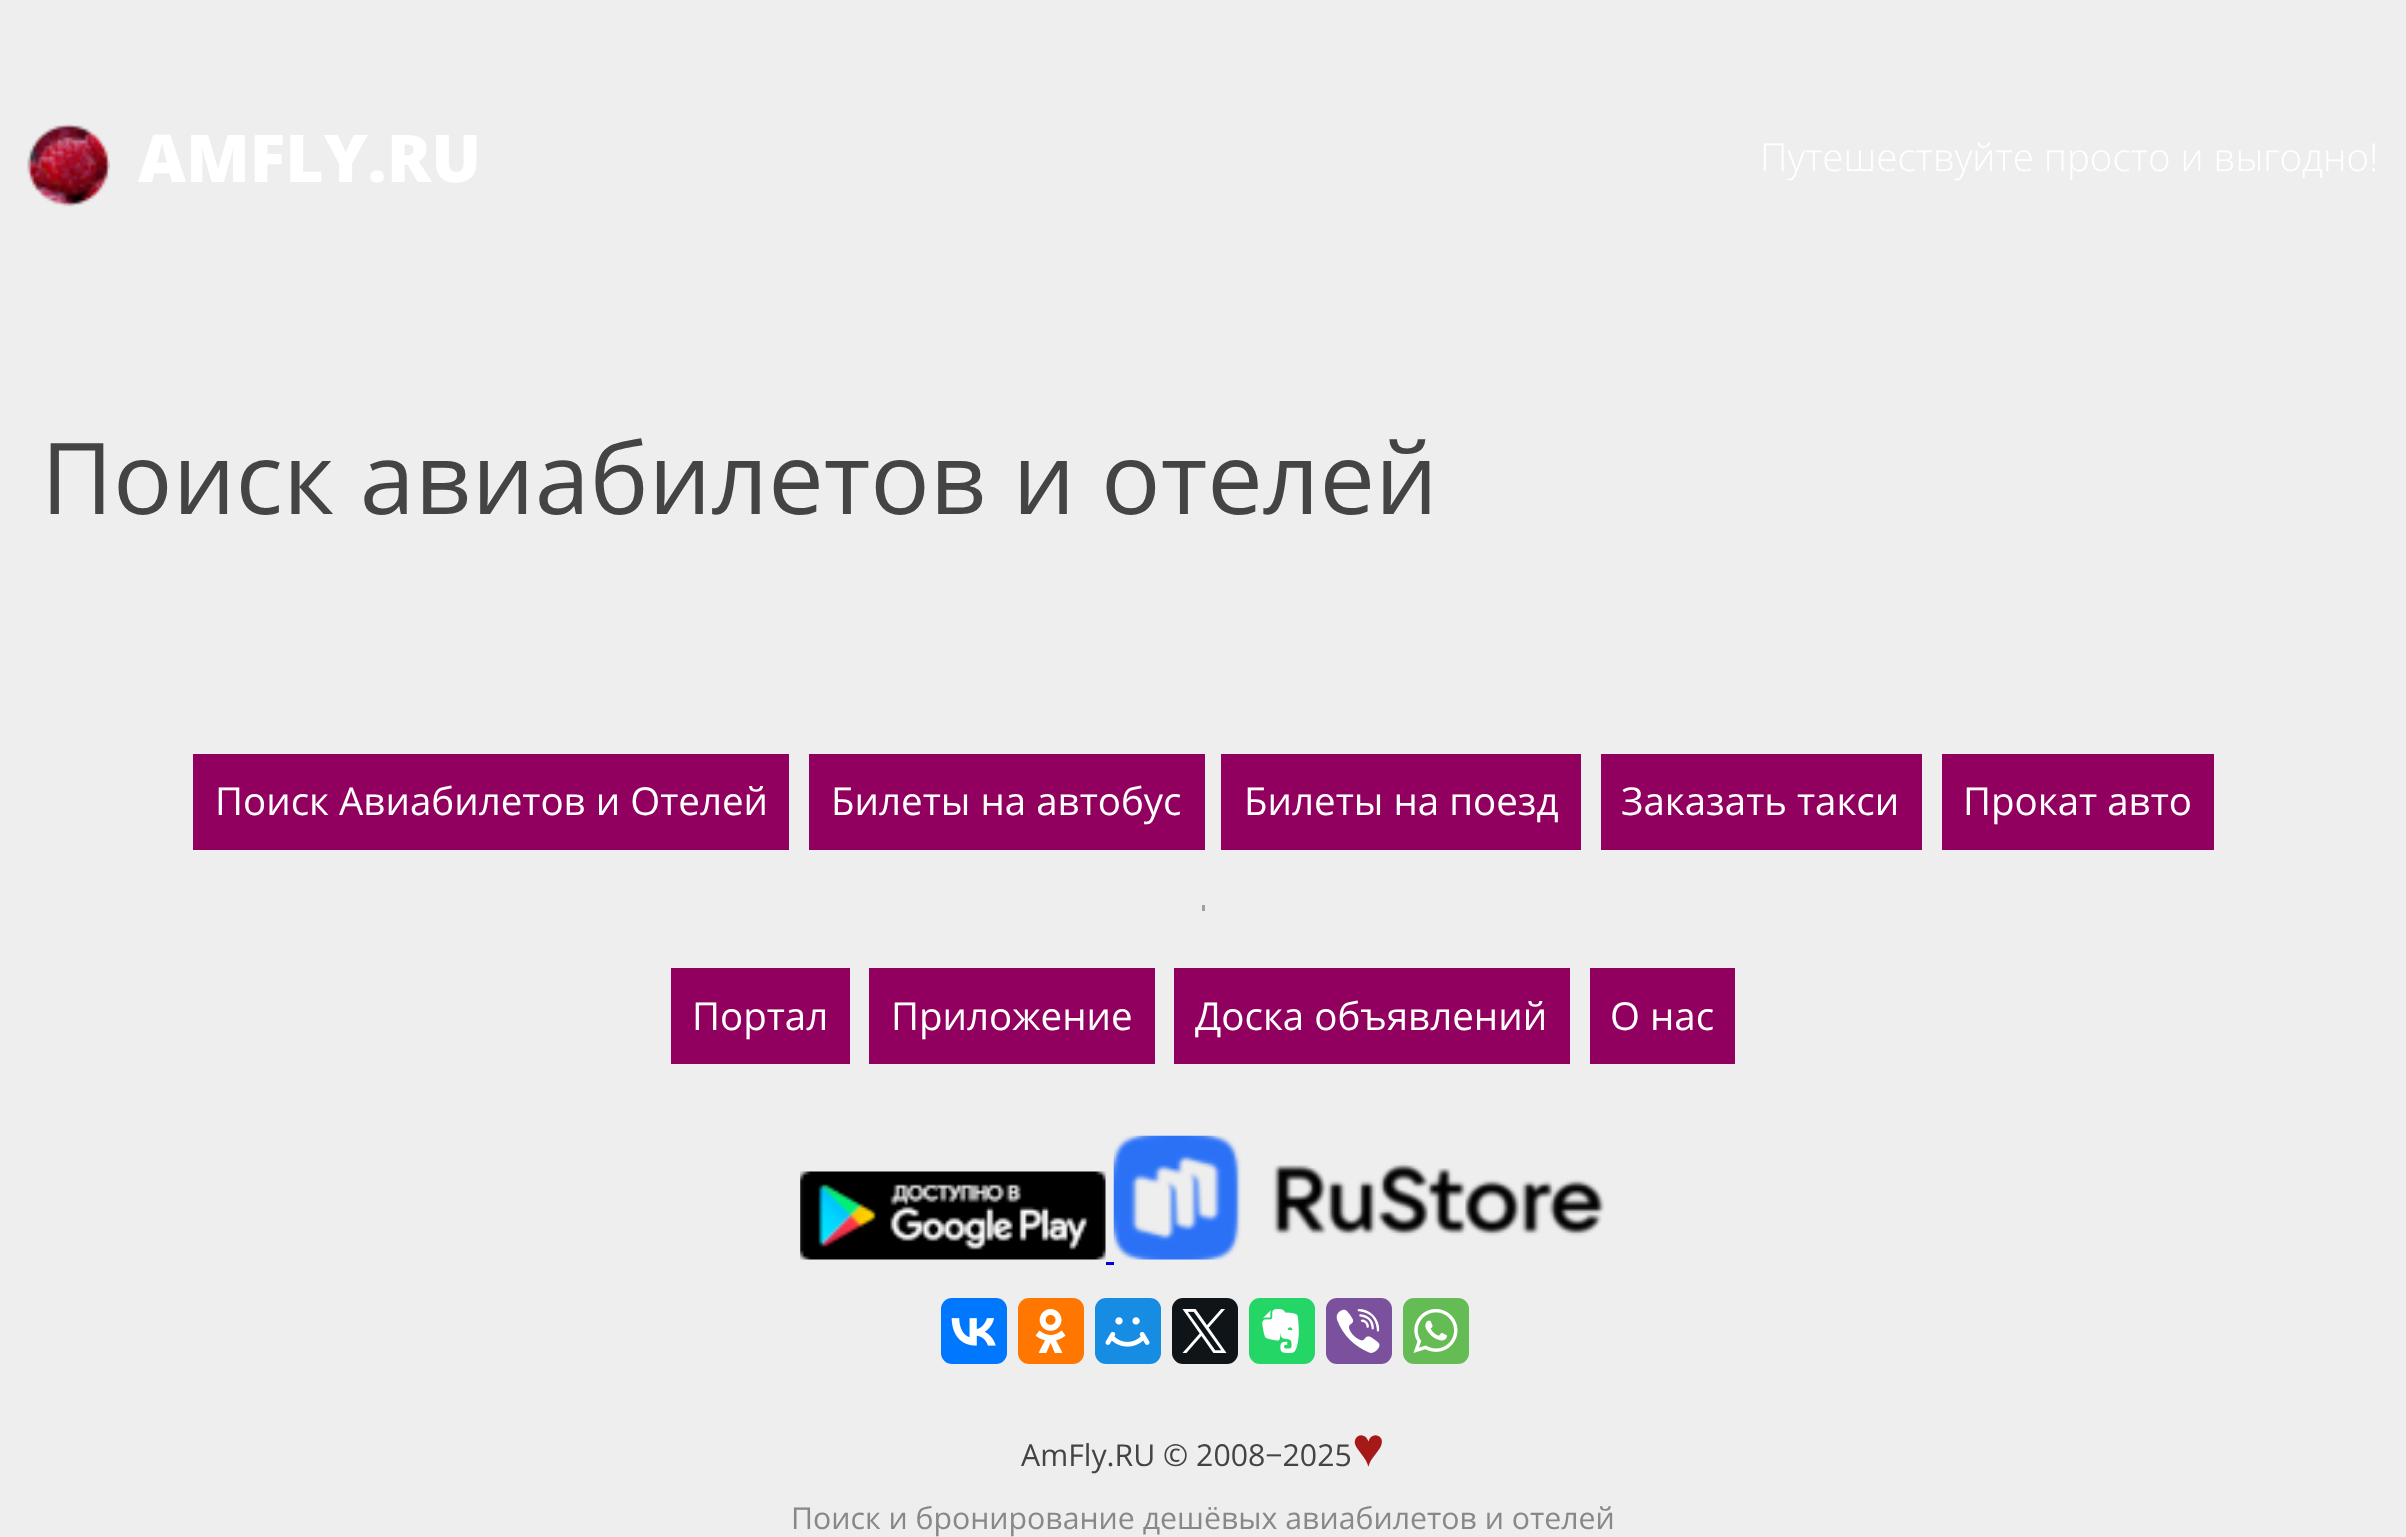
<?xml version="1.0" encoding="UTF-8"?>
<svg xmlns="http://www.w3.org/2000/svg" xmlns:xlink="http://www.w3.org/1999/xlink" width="2406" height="1537">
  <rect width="100%" height="100%" fill="#eeeeee" />
  <image x="27" y="124" width="83" height="83" xlink:href="image1.png" />
  <rect x="193" y="754" width="596" height="96" fill="#91005f" />
  <rect x="809" y="754" width="396" height="96" fill="#91005f" />
  <rect x="1221" y="754" width="360" height="96" fill="#91005f" />
  <rect x="1601" y="754" width="321" height="96" fill="#91005f" />
  <rect x="1942" y="754" width="272" height="96" fill="#91005f" />
  <rect x="1202" y="905" width="3" height="6" fill="#9f9f9f" />
  <rect x="671" y="968" width="179" height="96" fill="#91005f" />
  <rect x="869" y="968" width="286" height="96" fill="#91005f" />
  <rect x="1174" y="968" width="396" height="96" fill="#91005f" />
  <rect x="1590" y="968" width="145" height="96" fill="#91005f" />
  <image x="800" y="1171" width="306" height="89" xlink:href="image2.png" />
  <image x="1113" y="1135" width="492" height="125" xlink:href="image3.png" />
  <rect x="1106" y="1262" width="8" height="3" fill="#0000ee" />
  <rect x="941" y="1298" width="66" height="66" rx="11" fill="#0077ff" />
  <image x="951" y="1318" width="45" height="28" xlink:href="image4.png" />
  <rect x="1018" y="1298" width="66" height="66" rx="11" fill="#ff7700" />
  <image x="1035" y="1309" width="31" height="44" xlink:href="image5.png" />
  <rect x="1095" y="1298" width="66" height="66" rx="11" fill="#168de2" />
  <image x="1105" y="1317" width="45" height="30" xlink:href="image6.png" />
  <rect x="1172" y="1298" width="66" height="66" rx="11" fill="#0f1419" />
  <image x="1182" y="1309" width="45" height="44" xlink:href="image7.png" />
  <rect x="1249" y="1298" width="66" height="66" rx="11" fill="#24d666" />
  <image x="1262" y="1309" width="37" height="44" xlink:href="image8.png" />
  <rect x="1326" y="1298" width="66" height="66" rx="11" fill="#7b519d" />
  <image x="1336" y="1309" width="44" height="44" xlink:href="image9.png" />
  <rect x="1403" y="1298" width="66" height="66" rx="11" fill="#65bc54" />
  <image x="1413" y="1309" width="45" height="44" xlink:href="image10.png" />
  <text x="138" y="182" style="font-family: Open Sans; font-size: 66px; font-weight: 800; fill: #ffffff">AMFLY.RU</text>
  <text x="1760" y="171" style="font-family: Open Sans; font-size: 38.5px; font-weight: 300; fill: #ffffff">Путешествуйте просто и выгодно!</text>
  <text x="41" y="514" style="font-family: Open Sans; font-size: 99px; fill: #444444">Поиск авиабилетов и отелей</text>
  <text x="215" y="815" style="font-family: Open Sans; font-size: 38.5px; fill: #ffffff">Поиск Авиабилетов и Отелей</text>
  <text x="831" y="815" style="font-family: Open Sans; font-size: 38.5px; fill: #ffffff">Билеты на автобус</text>
  <text x="1244" y="815" style="font-family: Open Sans; font-size: 38.5px; fill: #ffffff">Билеты на поезд</text>
  <text x="1621" y="815" style="font-family: Open Sans; font-size: 38.5px; fill: #ffffff">Заказать такси</text>
  <text x="1963" y="815" style="font-family: Open Sans; font-size: 38.5px; fill: #ffffff">Прокат авто</text>
  <text x="692" y="1030" style="font-family: Open Sans; font-size: 38.5px; fill: #ffffff">Портал</text>
  <text x="891" y="1030" style="font-family: Open Sans; font-size: 38.5px; fill: #ffffff">Приложение</text>
  <text x="1195" y="1030" style="font-family: Open Sans; font-size: 38.5px; fill: #ffffff">Доска объявлений</text>
  <text x="1610" y="1030" style="font-family: Open Sans; font-size: 38.5px; fill: #ffffff">О нас</text>
  <text x="1021" y="1466" style="font-family: Open Sans; font-size: 30.25px; fill: #444444">AmFly.RU © 2008−2025</text>
  <text x="1352" y="1466" style="font-family: Liberation Sans; font-size: 55px; fill: #a51919">♥</text>
  <text x="791" y="1529" style="font-family: Open Sans; font-size: 30.25px; fill: #888888">Поиск и бронирование дешёвых авиабилетов и отелей</text>
</svg>
